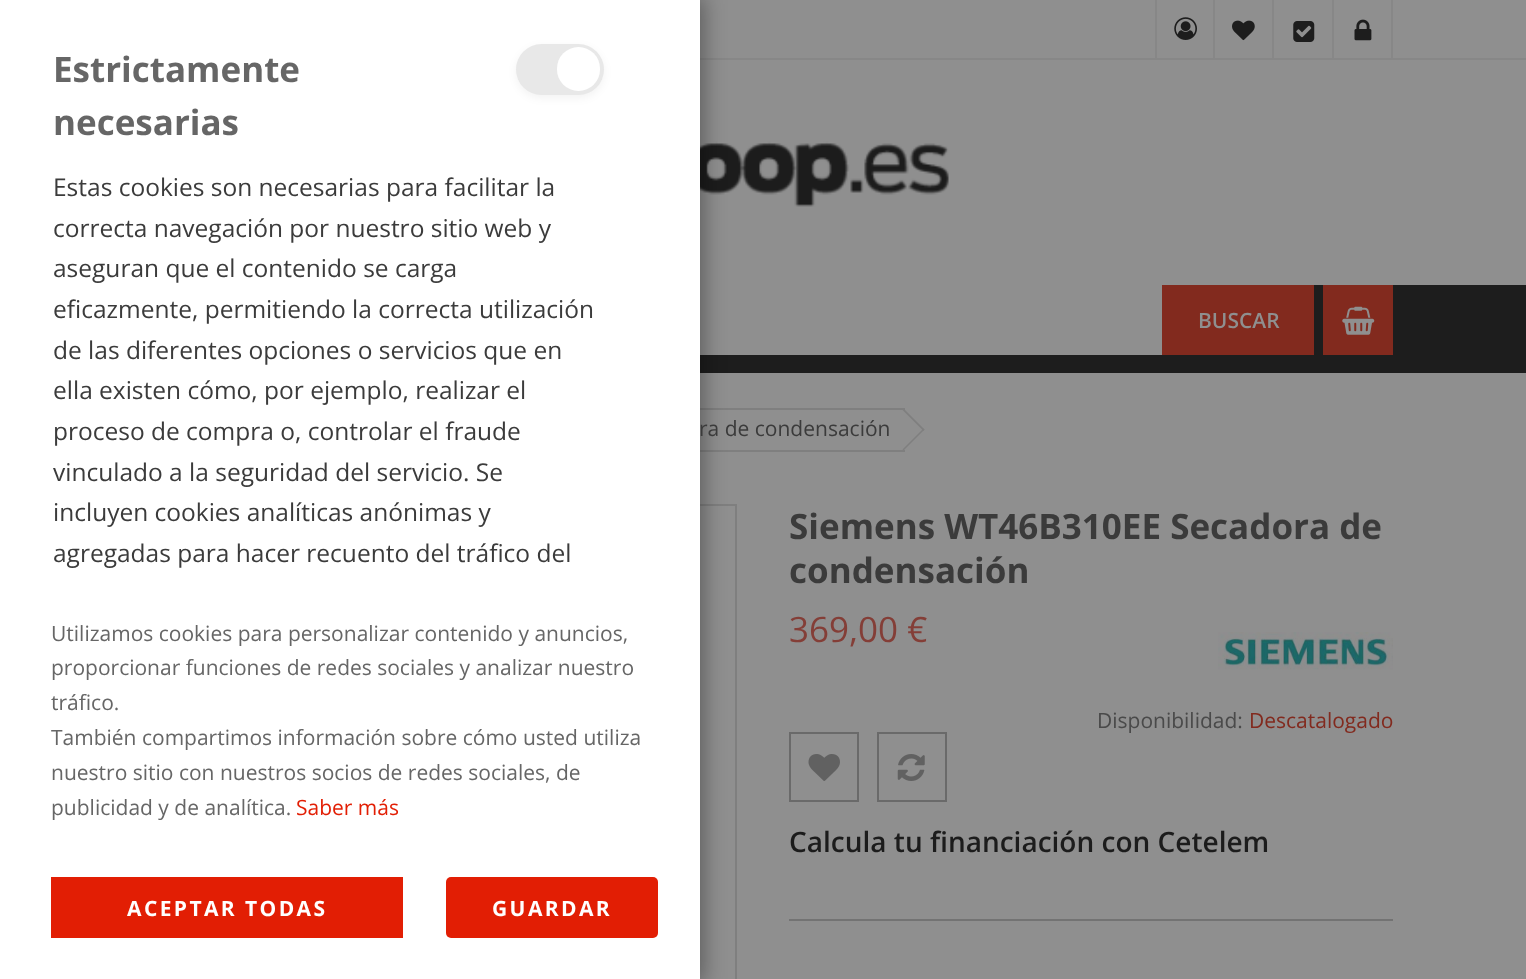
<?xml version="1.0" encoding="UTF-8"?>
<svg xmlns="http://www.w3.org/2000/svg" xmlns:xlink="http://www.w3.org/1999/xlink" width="1526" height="979">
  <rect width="100%" height="100%" fill="#8f8f8f" />
  <rect x="700" y="58" width="826" height="2" fill="#878787" />
  <rect x="700" y="285" width="826" height="88" fill="#1d1d1d" />
  <image x="700" y="125" width="249" height="82" xlink:href="image5.png" />
  <rect x="700" y="285" width="462" height="70" fill="#8f8f8f" />
  <rect x="700" y="408" width="205" height="2" fill="#7f7f7f" />
  <rect x="700" y="450" width="205" height="2" fill="#7f7f7f" />
  <rect x="134" y="505" width="602" height="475" fill="none" stroke="#7f7f7f" stroke-width="2" />
  <rect x="-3" y="-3" width="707" height="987" fill="#000000" fill-opacity="0.35" filter="blur(10.5px)" />
  <rect width="700" height="979" fill="#ffffff" />
  <rect x="516" y="47" width="88" height="51" rx="25.5" fill="#000000" fill-opacity="0.05" filter="blur(4.5px)" />
  <rect x="516" y="44" width="88" height="51" rx="25.5" fill="#e8e8e8" />
  <rect x="557" y="47" width="43" height="44" rx="21.5" fill="#ffffff" />
  <rect x="51" y="877" width="352" height="61" fill="#e21e04" />
  <rect x="446" y="877" width="212" height="61" rx="5" fill="#e21e04" />
  <rect x="1213" width="2" height="60" fill="#878787" />
  <rect x="1155" width="2" height="60" fill="#878787" />
  <image x="1174" y="17" width="23" height="23" xlink:href="image1.png" />
  <rect x="1272" width="2" height="60" fill="#878787" />
  <image x="1232" y="20" width="23" height="21" xlink:href="image2.png" />
  <rect x="1332" width="2" height="60" fill="#878787" />
  <image x="1293" y="21" width="22" height="21" xlink:href="image3.png" />
  <rect x="1391" width="2" height="60" fill="#878787" />
  <image x="1354" y="19" width="18" height="22" xlink:href="image4.png" />
  <rect x="1162" y="285" width="152" height="70" fill="#822a1e" />
  <rect x="1323" y="285" width="70" height="70" fill="#822a1e" />
  <image x="1342" y="306" width="33" height="29" xlink:href="image6.png" />
  <path d="M 903.5 408.5 l 21 21 l -1 1.5 l -21 -21 z" fill="#7f7f7f" />
  <path d="M 923.5 428.5 l 1 1 l -21 21 l -1 -1 z" fill="#7f7f7f" />
  <image x="1218" y="632" width="175" height="38" xlink:href="image7.png" />
  <rect x="790" y="733" width="68" height="68" fill="none" stroke="#6a6a6a" stroke-width="2" />
  <image x="808" y="754" width="32" height="27" xlink:href="image8.png" />
  <rect x="878" y="733" width="68" height="68" fill="none" stroke="#6a6a6a" stroke-width="2" />
  <image x="897" y="754" width="28" height="27" xlink:href="image9.png" />
  <rect x="789" y="919" width="604" height="2" fill="#737373" />
  <text x="53" y="82" style="font-family: Open Sans; font-size: 35px; font-weight: bold; fill: #666666">Estrictamente</text>
  <text x="53" y="135" style="font-family: Open Sans; font-size: 35px; font-weight: bold; fill: #666666">necesarias</text>
  <text x="53" y="196" style="font-family: Open Sans; font-size: 24.5px; fill: #3b3b3b">Estas cookies son necesarias para facilitar la</text>
  <text x="53" y="237" style="font-family: Open Sans; font-size: 24.5px; fill: #3b3b3b">correcta navegación por nuestro sitio web y</text>
  <text x="53" y="277" style="font-family: Open Sans; font-size: 24.5px; fill: #3b3b3b">aseguran que el contenido se carga</text>
  <text x="53" y="318" style="font-family: Open Sans; font-size: 24.5px; fill: #3b3b3b">eficazmente, permitiendo la correcta utilización</text>
  <text x="53" y="359" style="font-family: Open Sans; font-size: 24.5px; fill: #3b3b3b">de las diferentes opciones o servicios que en</text>
  <text x="53" y="399" style="font-family: Open Sans; font-size: 24.5px; fill: #3b3b3b">ella existen cómo, por ejemplo, realizar el</text>
  <text x="53" y="440" style="font-family: Open Sans; font-size: 24.5px; fill: #3b3b3b">proceso de compra o, controlar el fraude</text>
  <text x="53" y="481" style="font-family: Open Sans; font-size: 24.5px; fill: #3b3b3b">vinculado a la seguridad del servicio. Se</text>
  <text x="53" y="521" style="font-family: Open Sans; font-size: 24.5px; fill: #3b3b3b">incluyen cookies analíticas anónimas y</text>
  <text x="53" y="562" style="font-family: Open Sans; font-size: 24.5px; fill: #3b3b3b">agregadas para hacer recuento del tráfico del</text>
  <text x="51" y="641" style="font-family: Open Sans; font-size: 21px; fill: #666666">Utilizamos cookies para personalizar contenido y anuncios,</text>
  <text x="51" y="675" style="font-family: Open Sans; font-size: 21px; fill: #666666">proporcionar funciones de redes sociales y analizar nuestro</text>
  <text x="51" y="710" style="font-family: Open Sans; font-size: 21px; fill: #666666">tráfico.</text>
  <text x="51" y="745" style="font-family: Open Sans; font-size: 21px; fill: #666666">También compartimos información sobre cómo usted utiliza</text>
  <text x="51" y="780" style="font-family: Open Sans; font-size: 21px; fill: #666666">nuestro sitio con nuestros socios de redes sociales, de</text>
  <text x="51" y="815" style="font-family: Open Sans; font-size: 21px; fill: #666666">publicidad y de analítica.</text>
  <text x="296" y="815" style="font-family: Open Sans; font-size: 21px; fill: #e21e04">Saber más</text>
  <text x="127" y="916" style="font-family: Open Sans; font-size: 21px; font-weight: bold; letter-spacing: 2.4px; fill: #ffffff">ACEPTAR TODAS</text>
  <text x="492" y="916" style="font-family: Open Sans; font-size: 21px; font-weight: bold; letter-spacing: 2.4px; fill: #ffffff">GUARDAR</text>
  <text x="1198" y="328" style="font-family: Open Sans; font-size: 21px; font-weight: 600; fill: #8f8f8f">BUSCAR</text>
  <text x="699" y="436" style="font-family: Open Sans; font-size: 21px; fill: #3b3b3b">ra de condensación</text>
  <text x="789" y="539" style="font-family: Open Sans; font-size: 35px; font-weight: bold; fill: #3b3b3b">Siemens WT46B310EE Secadora de</text>
  <text x="789" y="583" style="font-family: Open Sans; font-size: 35px; font-weight: bold; fill: #3b3b3b">condensación</text>
  <text x="789" y="642" style="font-family: Open Sans; font-size: 35px; fill: #843e37">369,00 €</text>
  <text x="1097" y="728" style="font-family: Open Sans; font-size: 21px; fill: #4a4a4a">Disponibilidad:</text>
  <text x="1249" y="728" style="font-family: Open Sans; font-size: 21px; fill: #822a1e">Descatalogado</text>
  <text x="789" y="852" style="font-family: Open Sans; font-size: 28px; font-weight: 600; fill: #1c1c1c">Calcula tu financiación con Cetelem</text>
</svg>
